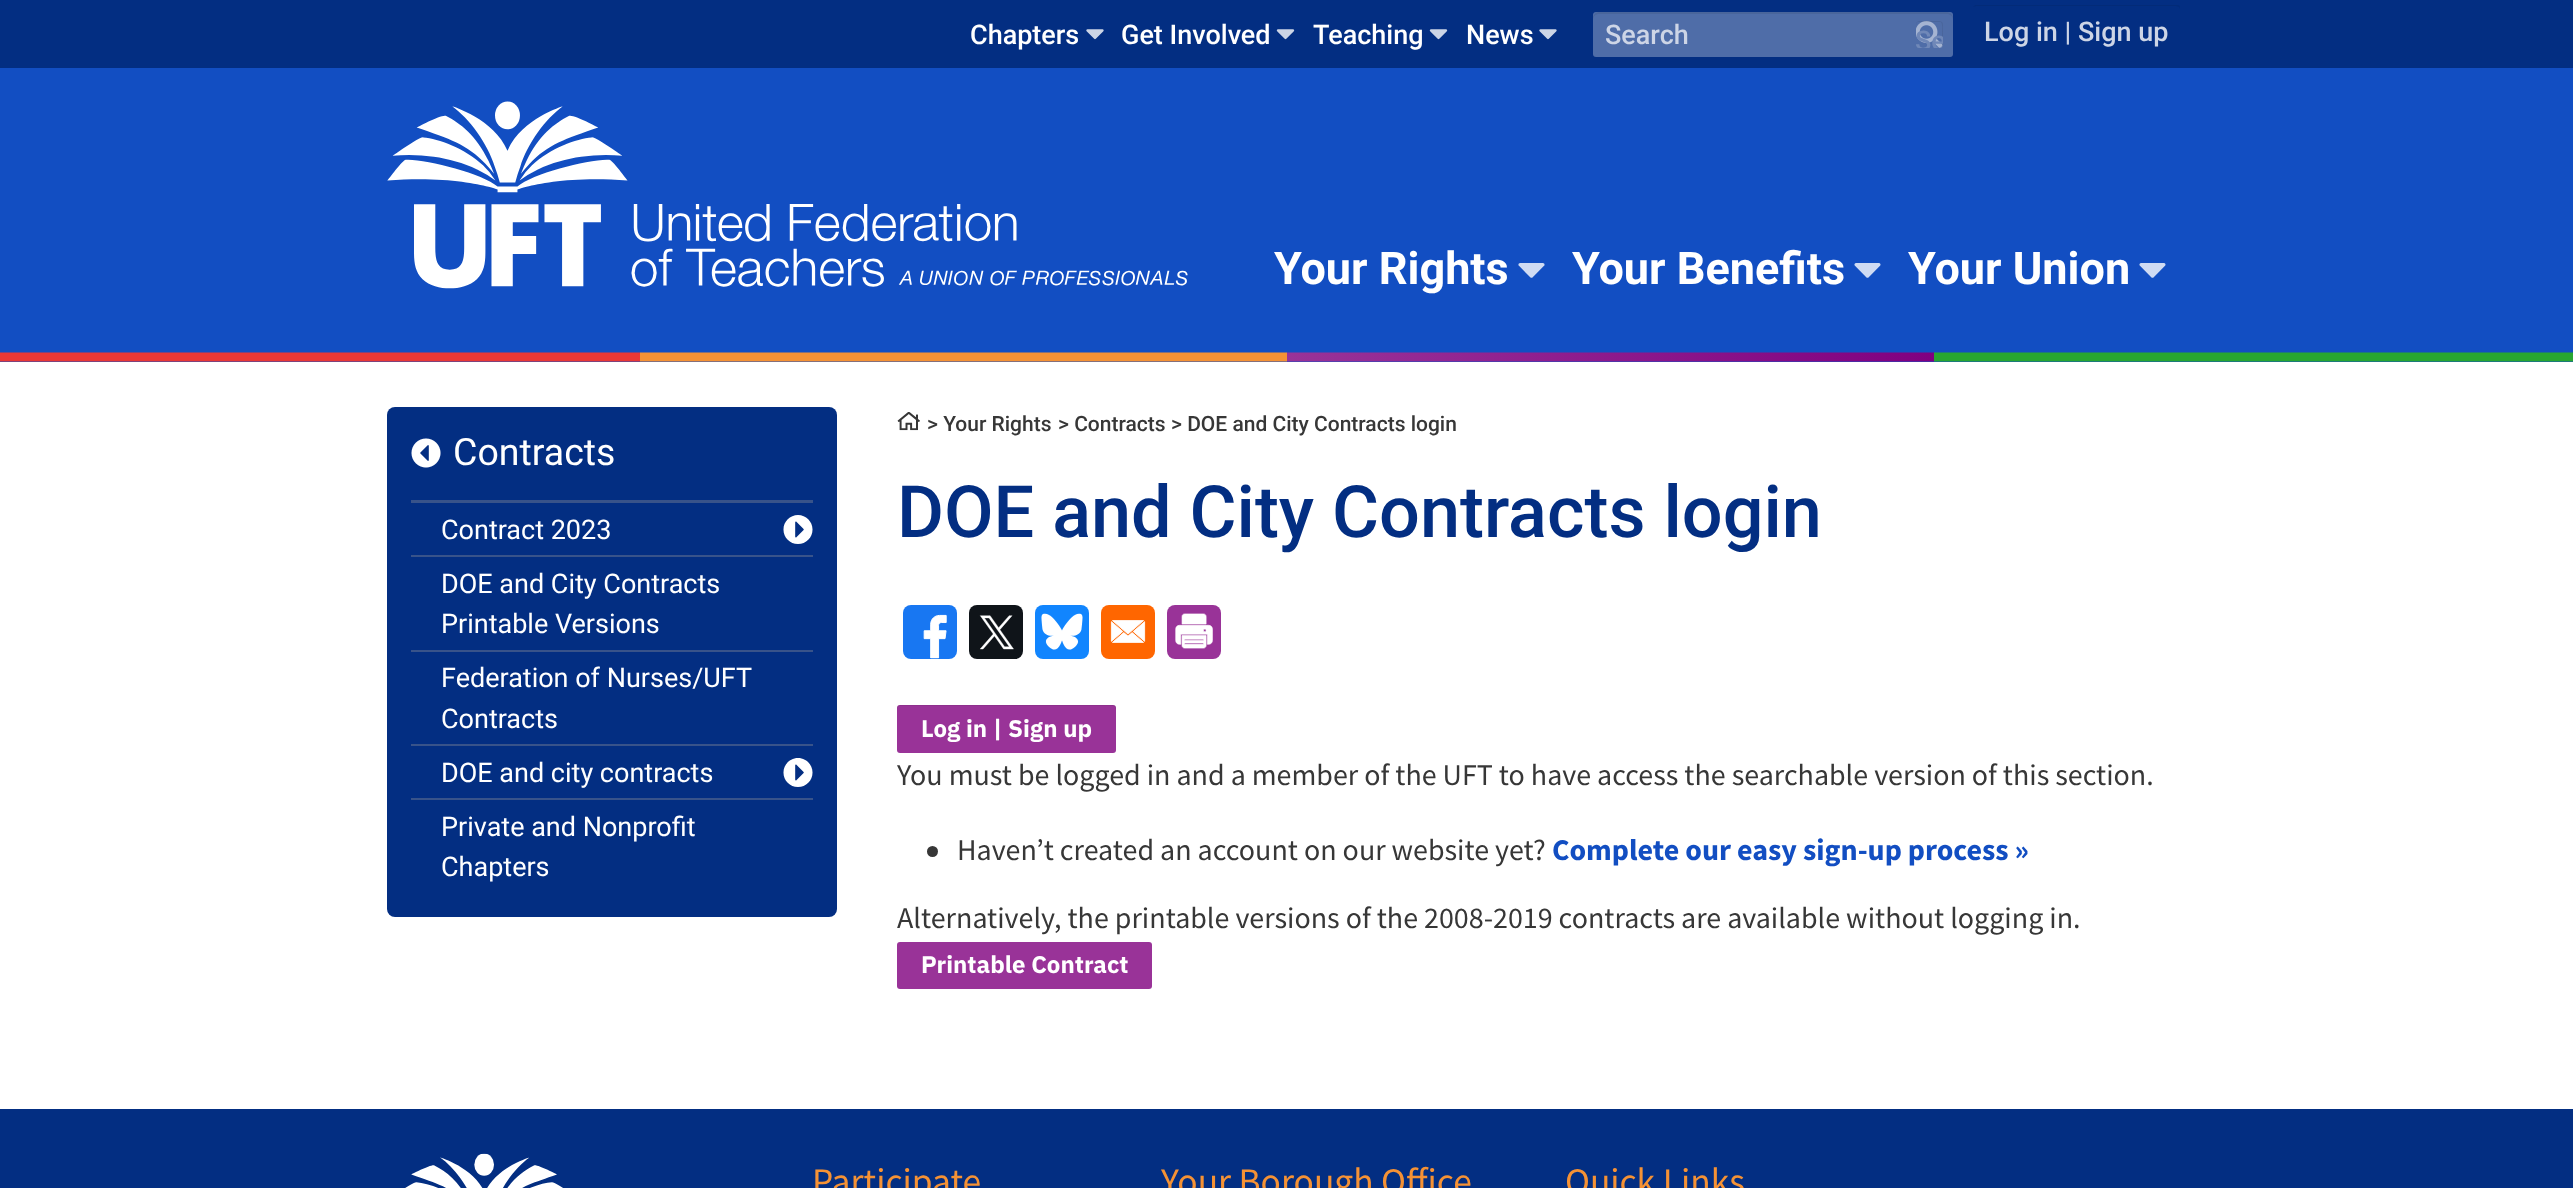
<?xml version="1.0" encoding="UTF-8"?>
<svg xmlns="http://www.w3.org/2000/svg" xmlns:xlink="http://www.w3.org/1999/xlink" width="2573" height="1188">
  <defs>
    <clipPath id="clip1"><rect x="1916" y="21" width="27" height="27" rx="3" /></clipPath>
  </defs>
  <rect width="100%" height="100%" fill="#ffffff" />
  <rect width="2573" height="68" fill="#032e82" />
  <image x="1086" y="29" width="18" height="11" xlink:href="image1.png" />
  <image x="1276" y="29" width="19" height="11" xlink:href="image2.png" />
  <image x="1429" y="29" width="19" height="11" xlink:href="image3.png" />
  <image x="1539" y="29" width="18" height="11" xlink:href="image4.png" />
  <rect x="1593" y="12" width="360" height="45" rx="3" fill="#4f6da8" />
  <path d="M 1599 14 h 348 c 3 0 6 2 6 6 v -2 c 0 -3 -3 -6 -6 -6 h -348 c -3 0 -6 3 -6 6 v 2 c 0 -4 3 -6 6 -6 z" fill="#49659b" />
  <image x="1916" y="21" width="27" height="27" xlink:href="image5.png" />
  <path d="M 1918 22 h 22.5 c 2.5 1.5 1.5 9 1.5 10.5 v 15 c 1.5 -1.5 1 -4 1 -6 v -7 c 0 -15.5 2 -13.5 -13.5 -13.5 h -7 c -5 0 -6.5 0 -6.5 5 c 0 -2 1 -4 2 -4 z" fill="#000000" fill-opacity="0.07" />
  <path d="M 1976 6 h 200 c 2 0 4 1 4 3 v -1 c 0 -2 -1 -3 -3 -3 h -201 c -1 0 -2 1 -3 2 z" fill="#032b78" />
  <rect y="68" width="2573" height="294" fill="#124ec2" />
  <image x="0" y="352" width="2573" height="10" xlink:href="image6.png" />
  <image x="387" y="101" width="801" height="188" xlink:href="image7.png" />
  <image x="1518" y="263" width="27" height="15" xlink:href="image8.png" />
  <image x="1854" y="263" width="27" height="15" xlink:href="image9.png" />
  <image x="2139" y="263" width="27" height="15" xlink:href="image9.png" />
  <rect x="387" y="407" width="450" height="510" rx="8" fill="#032e82" />
  <rect x="411" y="500" width="402" height="3" fill="#38538a" />
  <image x="411" y="438" width="30" height="30" xlink:href="image10.png" />
  <image x="783" y="515" width="30" height="29" xlink:href="image11.png" />
  <rect x="411" y="555" width="402" height="2" fill="#38538a" />
  <rect x="411" y="650" width="402" height="2" fill="#38538a" />
  <rect x="411" y="744" width="402" height="2" fill="#38538a" />
  <image x="783" y="758" width="30" height="29" xlink:href="image12.png" />
  <rect x="411" y="798" width="402" height="2" fill="#38538a" />
  <image x="897" y="412" width="23" height="19" xlink:href="image13.png" />
  <rect x="903" y="605" width="54" height="54" rx="8" fill="#1877f2" />
  <image x="923" y="614" width="24" height="45" xlink:href="image14.png" />
  <rect x="969" y="605" width="54" height="54" rx="8" fill="#0f1419" />
  <image x="979" y="615" width="35" height="35" xlink:href="image15.png" />
  <rect x="1035" y="605" width="54" height="54" rx="8" fill="#1185fe" />
  <image x="1041" y="613" width="42" height="37" xlink:href="image16.png" />
  <rect x="1101" y="605" width="54" height="54" rx="8" fill="#ff6600" />
  <image x="1110" y="620" width="36" height="23" xlink:href="image17.png" />
  <rect x="1167" y="605" width="54" height="54" rx="8" fill="#993398" />
  <image x="1175" y="613" width="38" height="36" xlink:href="image18.png" />
  <rect x="897" y="705" width="219" height="48" rx="3" fill="#993398" />
  <path d="M 900 706 h 213 l 2 1 l 1 3 v -2 c 0 -2 -1 -3 -3 -3 h -213 c -2 0 -3 1 -3 3 v 2 c 0 -2 1 -4 3 -4 z" fill="#000000" fill-opacity="0.07" />
  <circle cx="932.5" cy="851.5" r="5.5" fill="#373737" />
  <rect x="897" y="942" width="255" height="47" rx="3" fill="#993398" />
  <rect y="1109" width="2573" height="79" fill="#032e82" />
  <image x="405" y="1153" width="158" height="35" xlink:href="image19.png" />
  <text x="970" y="44" style="font-family: Roboto; font-size: 27px; font-weight: 500; fill: #ffffff">Chapters</text>
  <text x="1121" y="44" style="font-family: Roboto; font-size: 27px; font-weight: 500; fill: #ffffff">Get Involved</text>
  <text x="1313" y="44" style="font-family: Roboto; font-size: 27px; font-weight: 500; fill: #ffffff">Teaching</text>
  <text x="1466" y="44" style="font-family: Roboto; font-size: 27px; font-weight: 500; fill: #ffffff">News</text>
  <text x="1605" y="44" style="font-family: Roboto; font-size: 27px; font-weight: 500; fill: #cdd5e6">Search</text>
  <g clip-path="url(#clip1)">
    <text x="1915" y="50" style="font-family: Roboto; font-size: 27px; font-weight: 500; fill: #7088b8">Se</text>
  </g>
  <text x="1984" y="41" style="font-family: Roboto; font-size: 27px; font-weight: 500; fill: #cdd5e6">Log in | Sign up</text>
  <text x="1274" y="284" style="font-family: Roboto; font-size: 45px; font-weight: bold; fill: #ffffff">Your Rights</text>
  <text x="1572" y="284" style="font-family: Roboto; font-size: 45px; font-weight: bold; fill: #ffffff">Your Benefits</text>
  <text x="1908" y="284" style="font-family: Roboto; font-size: 45px; font-weight: bold; fill: #ffffff">Your Union</text>
  <text x="453" y="465" style="font-family: Roboto; font-size: 37.5px; fill: #ffffff">Contracts</text>
  <text x="441" y="539" style="font-family: Roboto; font-size: 27px; fill: #ffffff">Contract 2023</text>
  <text x="441" y="593" style="font-family: Roboto; font-size: 27px; fill: #ffffff">DOE and City Contracts</text>
  <text x="441" y="633" style="font-family: Roboto; font-size: 27px; fill: #ffffff">Printable Versions</text>
  <text x="441" y="687" style="font-family: Roboto; font-size: 27px; fill: #ffffff">Federation of Nurses/UFT</text>
  <text x="441" y="728" style="font-family: Roboto; font-size: 27px; fill: #ffffff">Contracts</text>
  <text x="441" y="782" style="font-family: Roboto; font-size: 27px; fill: #ffffff">DOE and city contracts</text>
  <text x="441" y="836" style="font-family: Roboto; font-size: 27px; fill: #ffffff">Private and Nonprofit</text>
  <text x="441" y="876" style="font-family: Roboto; font-size: 27px; fill: #ffffff">Chapters</text>
  <text x="927" y="431" style="font-family: Roboto; font-size: 21px; font-weight: 500; fill: #373737">&gt; Your Rights</text>
  <text x="1058" y="431" style="font-family: Roboto; font-size: 21px; font-weight: 500; fill: #373737">&gt; Contracts</text>
  <text x="1171" y="431" style="font-family: Roboto; font-size: 21px; font-weight: 500; fill: #373737">&gt; DOE and City Contracts login</text>
  <text x="897" y="537" style="font-family: Roboto; font-size: 72px; font-weight: 500; fill: #032e82">DOE and City Contracts login</text>
  <text x="921" y="737" style="font-family: IBM Plex Sans; font-size: 24px; font-weight: bold; fill: #ffffff">Log in | Sign up</text>
  <text x="897" y="785" style="font-family: Source Sans Pro; font-size: 30px; fill: #373737">You must be logged in and a member of the UFT to have access the searchable version of this section.</text>
  <text x="957" y="860" style="font-family: Source Sans Pro; font-size: 30px; fill: #373737">Haven’t created an account on our website yet?</text>
  <text x="1552" y="860" style="font-family: Source Sans Pro; font-size: 30px; font-weight: bold; fill: #124ec2">Complete our easy sign-up process »</text>
  <text x="897" y="928" style="font-family: Source Sans Pro; font-size: 30px; fill: #373737">Alternatively, the printable versions of the 2008-2019 contracts are available without logging in.</text>
  <text x="921" y="973" style="font-family: IBM Plex Sans; font-size: 24px; font-weight: bold; fill: #ffffff">Printable Contract</text>
  <text x="812" y="1194" style="font-family: Source Sans Pro; font-size: 37.5px; fill: #f59235">Participate</text>
  <text x="1161" y="1194" style="font-family: Source Sans Pro; font-size: 37.5px; fill: #f59235">Your Borough Office</text>
  <text x="1565" y="1194" style="font-family: Source Sans Pro; font-size: 37.5px; fill: #f59235">Quick Links</text>
</svg>
